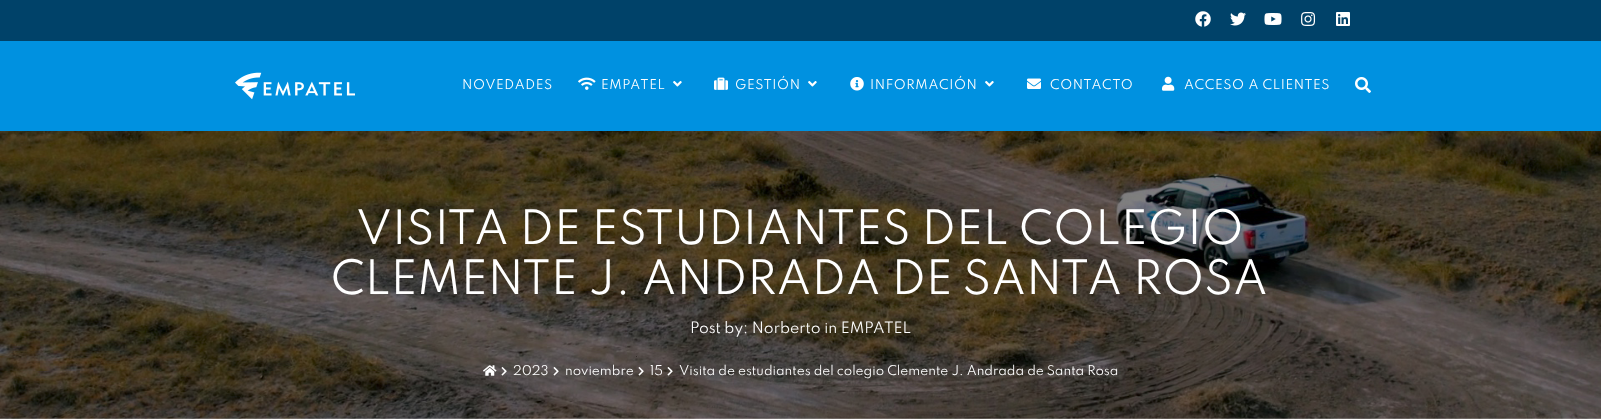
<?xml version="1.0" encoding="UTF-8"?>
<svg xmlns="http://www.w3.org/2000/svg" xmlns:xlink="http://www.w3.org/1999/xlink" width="1601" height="419">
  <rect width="100%" height="100%" fill="#ffffff" />
  <rect width="1601" height="41" fill="#004269" />
  <image x="1195" y="11" width="16" height="16" xlink:href="image1.png" />
  <image x="1230" y="12" width="16" height="14" xlink:href="image2.png" />
  <image x="1264" y="13" width="18" height="12" xlink:href="image3.png" />
  <image x="1301" y="12" width="15" height="14" xlink:href="image4.png" />
  <image x="1336" y="12" width="14" height="14" xlink:href="image5.png" />
  <rect y="41" width="1601" height="90" fill="#0091e0" />
  <image x="235" y="72" width="120" height="28" xlink:href="image6.png" />
  <image x="578" y="77" width="18" height="13" xlink:href="image7.png" />
  <image x="673" y="81" width="9" height="6" xlink:href="image8.png" />
  <image x="714" y="77" width="14" height="13" xlink:href="image9.png" />
  <image x="808" y="81" width="9" height="6" xlink:href="image8.png" />
  <image x="850" y="77" width="14" height="14" xlink:href="image10.png" />
  <image x="985" y="81" width="9" height="6" xlink:href="image8.png" />
  <image x="1027" y="78" width="14" height="11" xlink:href="image11.png" />
  <image x="1162" y="76" width="13" height="15" xlink:href="image12.png" />
  <image x="1355" y="77" width="16" height="16" xlink:href="image13.png" />
  <image x="0" y="131" width="1601" height="288" xlink:href="image14.png" />
  <image x="483" y="365" width="14" height="11" xlink:href="image15.png" />
  <image x="501" y="367" width="6" height="9" xlink:href="image16.png" />
  <image x="553" y="367" width="6" height="9" xlink:href="image17.png" />
  <image x="638" y="367" width="6" height="9" xlink:href="image18.png" />
  <image x="667" y="367" width="6" height="9" xlink:href="image19.png" />
  <text x="462" y="89" style="font-family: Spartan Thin; font-size: 12px; font-weight: 100; letter-spacing: 0.6px; fill: #ffffff">NOVEDADES</text>
  <text x="601" y="89" style="font-family: Spartan Thin; font-size: 12px; font-weight: 100; letter-spacing: 0.6px; fill: #ffffff">EMPATEL</text>
  <text x="735" y="89" style="font-family: Spartan Thin; font-size: 12px; font-weight: 100; letter-spacing: 0.6px; fill: #ffffff">GESTIÓN</text>
  <text x="870" y="89" style="font-family: Spartan Thin; font-size: 12px; font-weight: 100; letter-spacing: 0.6px; fill: #ffffff">INFORMACIÓN</text>
  <text x="1050" y="89" style="font-family: Spartan Thin; font-size: 12px; font-weight: 100; letter-spacing: 0.6px; fill: #ffffff">CONTACTO</text>
  <text x="1184" y="89" style="font-family: Spartan Thin; font-size: 12px; font-weight: 100; letter-spacing: 0.6px; fill: #ffffff">ACCESO A CLIENTES</text>
  <text x="356" y="244" style="font-family: Spartan Thin; font-size: 42px; font-weight: 100; fill: #ffffff">VISITA DE ESTUDIANTES DEL COLEGIO</text>
  <text x="331" y="294" style="font-family: Spartan Thin; font-size: 42px; font-weight: 100; fill: #ffffff">CLEMENTE J. ANDRADA DE SANTA ROSA</text>
  <text x="690" y="333" style="font-family: Spartan Thin; font-size: 14px; font-weight: 100; fill: #ffffff">Post by: Norberto in EMPATEL</text>
  <text x="513" y="375" style="font-family: Spartan Thin; font-size: 12px; font-weight: 100; fill: #ffffff">2023</text>
  <text x="565" y="375" style="font-family: Spartan Thin; font-size: 12px; font-weight: 100; fill: #ffffff">noviembre</text>
  <text x="650" y="375" style="font-family: Spartan Thin; font-size: 12px; font-weight: 100; fill: #ffffff">15</text>
  <text x="679" y="375" style="font-family: Spartan Thin; font-size: 12px; font-weight: 100; fill: #ffffff">Visita de estudiantes del colegio Clemente J. Andrada de Santa Rosa</text>
</svg>
